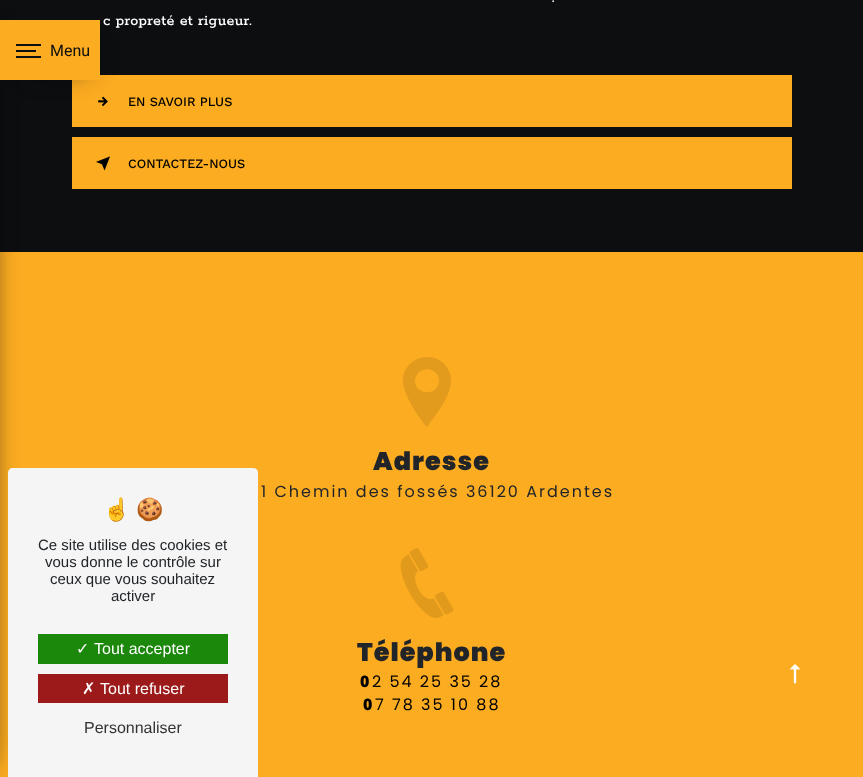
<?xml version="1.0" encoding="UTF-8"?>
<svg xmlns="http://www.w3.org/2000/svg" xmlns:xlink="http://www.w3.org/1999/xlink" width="863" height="777">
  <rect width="100%" height="100%" fill="#0c0e0f" />
  <rect y="252" width="863" height="525" fill="#fcac21" />
  <rect x="-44" y="33" width="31" height="731" fill="#000000" filter="blur(14.5px)" />
  <rect x="72" y="75" width="720" height="52" fill="#fcac21" />
  <image x="98" y="96" width="10" height="10" xlink:href="image1.png" />
  <rect x="33" y="53" width="54" height="14" fill="#000000" filter="blur(14.5px)" />
  <rect y="20" width="100" height="60" fill="#fcac21" />
  <rect x="16" y="44" width="25" height="2" fill="#0c0e0f" />
  <rect x="16" y="50" width="20" height="2" fill="#0c0e0f" />
  <rect x="16" y="56" width="25" height="2" fill="#0c0e0f" />
  <rect x="72" y="137" width="720" height="52" fill="#fcac21" />
  <image x="96" y="156" width="14" height="15" xlink:href="image2.png" />
  <path d="M 425 425 c -8 -10 -20 -28 -22 -42 c -2 -27 35 -36 46 -12 c 8 17 -10 40 -20 53 c -2 3 -1 4 -4 1 z m 14 -44 c 0 -15 -23 -16 -24 0 c 0 14 23 16 24 0 z" fill="#e39b1e" />
  <image x="400" y="548" width="54" height="70" xlink:href="image3.png" />
  <image x="790" y="664" width="10" height="20" xlink:href="image4.png" />
  <path d="M 13 468 h 240 c 3 0 5 2 5 5 v 304 h -250 v -304 c 0 -3 2 -5 5 -5 z" fill="#f5f5f5" />
  <rect x="38" y="634" width="190" height="30" fill="#1b870b" />
  <rect x="38" y="674" width="190" height="29" fill="#9c1a1a" />
  <text x="50" y="56" style="font-family: Roboto; font-size: 16px; fill: #0c0e0f">Menu</text>
  <text x="552" y="2" style="font-family: Rokkitt; font-size: 16px; font-weight: 500; letter-spacing: 0.3px; fill: #ffffff">.</text>
  <text x="103" y="25" style="font-family: Rokkitt; font-size: 16px; font-weight: 500; letter-spacing: 0.3px; fill: #ffffff">c propreté et rigueur.</text>
  <text x="128" y="106" style="font-family: Work Sans; font-size: 12.75px; font-weight: 500; fill: #000000">EN SAVOIR PLUS</text>
  <text x="128" y="168" style="font-family: Work Sans; font-size: 12.75px; font-weight: 500; fill: #000000">CONTACTEZ-NOUS</text>
  <text x="373" y="470" style="font-family: Poppins; font-size: 25.5px; font-weight: 900; letter-spacing: 1px; fill: #212529">Adresse</text>
  <text x="261" y="497" style="font-family: Poppins; font-size: 16px; letter-spacing: 2px; fill: #212529">1 Chemin des fossés 36120 Ardentes</text>
  <text x="357" y="661" style="font-family: Poppins; font-size: 25.5px; font-weight: 900; letter-spacing: 1px; fill: #212529">Téléphone</text>
  <text x="360" y="687" style="font-family: Noto Sans; font-size: 16px; font-weight: 900; letter-spacing: 2px; fill: #000000">0</text>
  <text x="372" y="687" style="font-family: Poppins; font-size: 16px; letter-spacing: 2px; fill: #000000">2 54 25 35 28</text>
  <text x="363" y="710" style="font-family: Noto Sans; font-size: 16px; font-weight: 900; letter-spacing: 2px; fill: #000000">0</text>
  <text x="375" y="710" style="font-family: Poppins; font-size: 16px; letter-spacing: 2px; fill: #000000">7 78 35 10 88</text>
  <text x="103" y="517" style="font-family: Noto Color Emoji; font-size: 22px; fill: #212529">☝</text>
  <text x="136" y="517" style="font-family: Noto Color Emoji; font-size: 22px; fill: #212529">🍪</text>
  <text x="38" y="550" style="font-family: Liberation Sans; font-size: 15px; fill: #212529">Ce site utilise des cookies et</text>
  <text x="45" y="567" style="font-family: Liberation Sans; font-size: 15px; fill: #212529">vous donne le contrôle sur</text>
  <text x="50" y="584" style="font-family: Liberation Sans; font-size: 15px; fill: #212529">ceux que vous souhaitez</text>
  <text x="111" y="601" style="font-family: Liberation Sans; font-size: 15px; fill: #212529">activer</text>
  <text x="76" y="654" style="font-family: DejaVu Sans; font-size: 16px; fill: #ffffff">✓</text>
  <text x="94" y="654" style="font-family: Liberation Sans; font-size: 16px; fill: #ffffff">Tout accepter</text>
  <text x="82" y="694" style="font-family: DejaVu Sans; font-size: 16px; fill: #ffffff">✗</text>
  <text x="100" y="694" style="font-family: Liberation Sans; font-size: 16px; fill: #ffffff">Tout refuser</text>
  <text x="84" y="733" style="font-family: Liberation Sans; font-size: 16px; fill: #333333">Personnaliser</text>
</svg>
